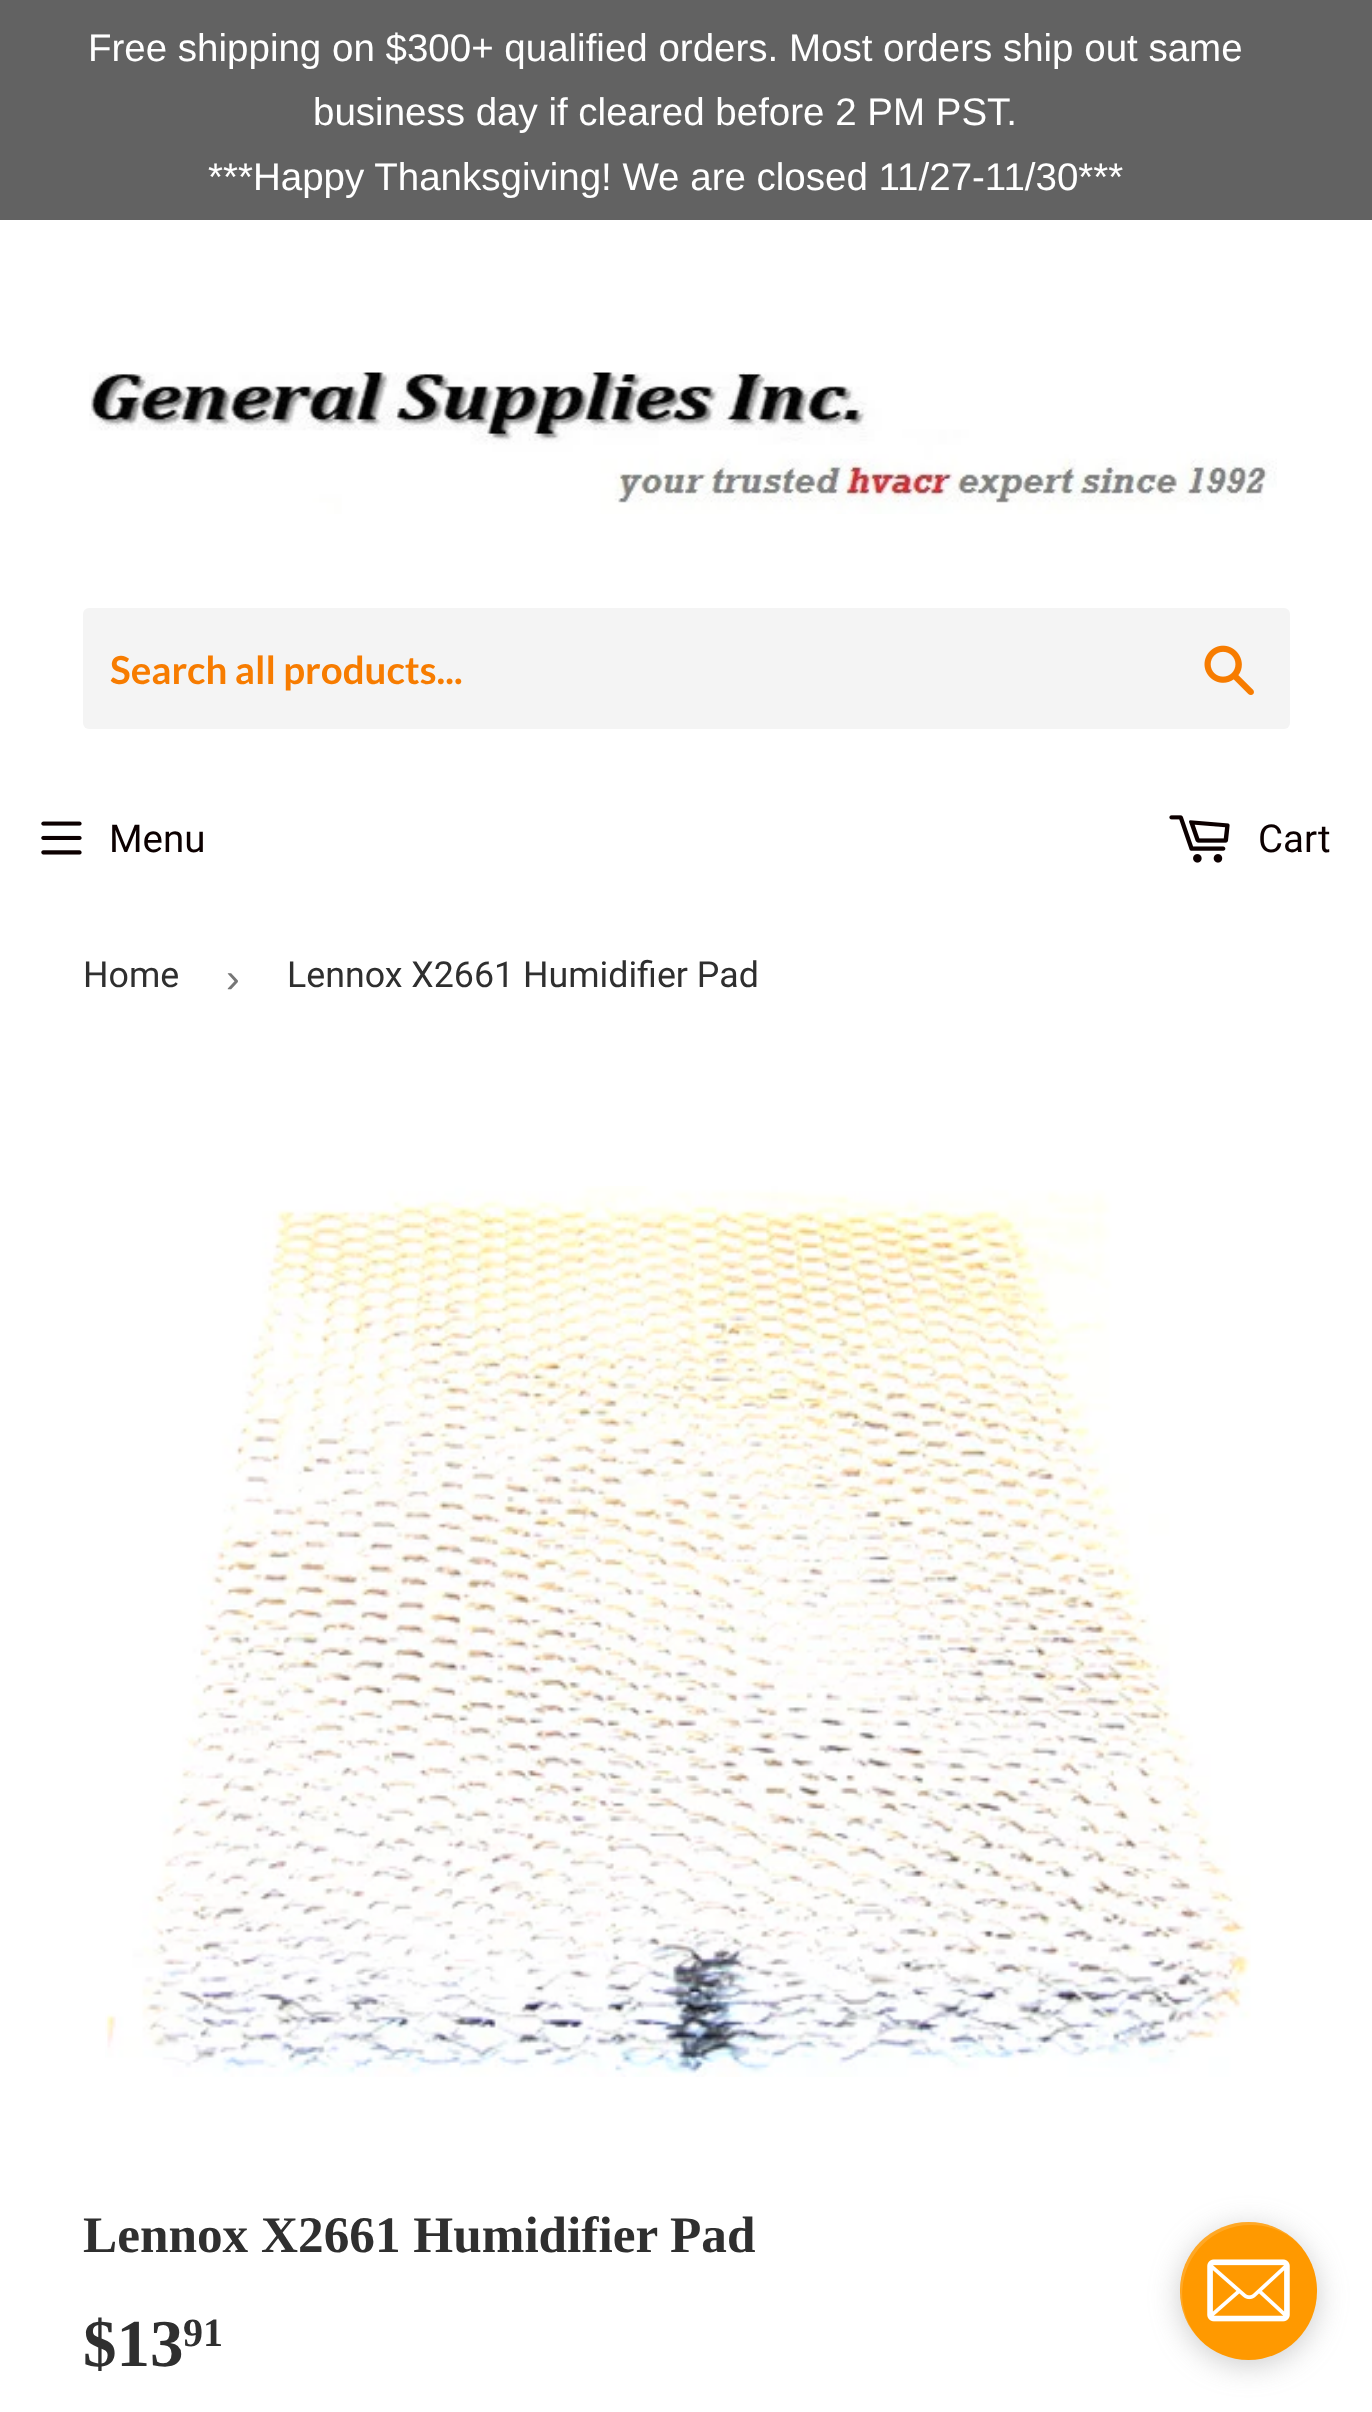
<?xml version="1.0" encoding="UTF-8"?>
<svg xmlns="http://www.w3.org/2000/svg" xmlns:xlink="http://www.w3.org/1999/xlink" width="1372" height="2412">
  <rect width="100%" height="100%" fill="#ffffff" />
  <rect width="1372" height="220" fill="#626262" />
  <image x="89" y="372" width="1188" height="142" xlink:href="image1.png" />
  <rect x="83" y="608" width="1207" height="121" rx="6" fill="#f4f4f4" />
  <image x="1204" y="645" width="50" height="50" xlink:href="image2.png" />
  <image x="41" y="821" width="41" height="34" xlink:href="image3.png" />
  <image x="1169" y="815" width="61" height="48" xlink:href="image4.png" />
  <image x="105" y="1186" width="1146" height="891" xlink:href="image5.png" />
  <rect x="1180" y="2228" width="137" height="137" rx="68.5" fill="#808080" fill-opacity="0.4" filter="blur(15px)" />
  <rect x="1180" y="2222" width="137" height="138" rx="68.5" fill="#ff9900" />
  <path d="M 1251 2225 c 20 0 38 8 50 22 c -25 -31 -72 -34 -101 -5 c -28 29 -26 76 4 102 c -45 -42 -16 -119 47 -119 z" fill="#ffffff" fill-opacity="0.15" />
  <image x="1207" y="2259" width="83" height="63" xlink:href="image6.png" />
  <text x="88" y="61" style="font-family: Liberation Sans; font-size: 38.5px; fill: #ffffff">Free shipping on $300+ qualified orders. Most orders ship out same</text>
  <text x="313" y="125" style="font-family: Liberation Sans; font-size: 38.5px; fill: #ffffff">business day if cleared before 2 PM PST.</text>
  <text x="208" y="190" style="font-family: Liberation Sans; font-size: 38.5px; fill: #ffffff">***Happy Thanksgiving! We are closed 11/27-11/30***</text>
  <text x="110" y="684" style="font-family: Lato; font-size: 38.5px; font-weight: bold; fill: #f77c00">Search all products...</text>
  <text x="109" y="852" style="font-family: Roboto; font-size: 38.5px; fill: #0c0000">Menu</text>
  <text x="1258" y="852" style="font-family: Roboto; font-size: 38.5px; fill: #0c0000">Cart</text>
  <text x="83" y="987" style="font-family: Roboto; font-size: 35.75px; fill: #2f2f2f">Home</text>
  <text x="226" y="992" style="font-family: Liberation Sans; font-size: 41px; fill: #767676">›</text>
  <text x="287" y="987" style="font-family: Roboto; font-size: 35.75px; fill: #2f2f2f">Lennox X2661 Humidifier Pad</text>
  <text x="83" y="2252" style="font-family: Liberation Serif; font-size: 51.25px; font-weight: bold; fill: #2f2f2f">Lennox X2661 Humidifier Pad</text>
  <text x="83" y="2366" style="font-family: Liberation Serif; font-size: 67px; font-weight: bold; fill: #2f2f2f">$13</text>
  <text x="183" y="2346" style="font-family: Liberation Serif; font-size: 40px; font-weight: bold; fill: #2f2f2f">91</text>
</svg>
